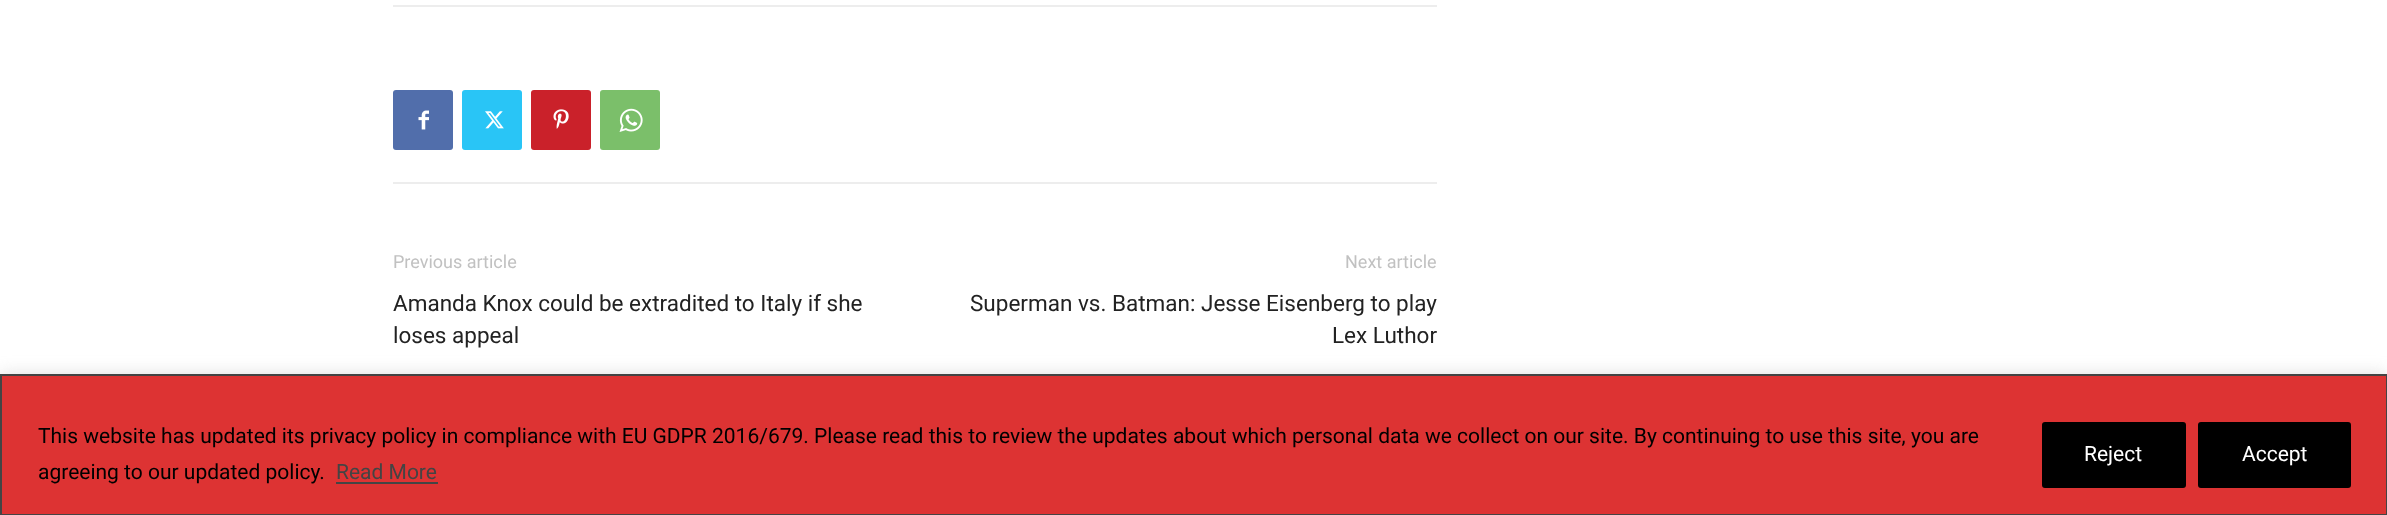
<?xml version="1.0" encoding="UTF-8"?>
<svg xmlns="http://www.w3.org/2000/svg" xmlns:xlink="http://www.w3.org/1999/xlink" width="2387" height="515">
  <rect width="100%" height="100%" fill="#ffffff" />
  <rect x="393" y="5" width="1044" height="2" fill="#ededed" />
  <rect x="393" y="182" width="1044" height="2" fill="#ededed" />
  <rect x="393" y="90" width="60" height="60" rx="3" fill="#516eab" />
  <image x="418" y="110" width="11" height="20" xlink:href="image1.png" />
  <rect x="462" y="90" width="60" height="60" rx="3" fill="#29c5f6" />
  <image x="485" y="111" width="19" height="18" xlink:href="image2.png" />
  <rect x="531" y="90" width="60" height="60" rx="3" fill="#ca212a" />
  <image x="553" y="109" width="16" height="20" xlink:href="image3.png" />
  <rect x="600" y="90" width="60" height="60" rx="3" fill="#7bbf6a" />
  <image x="619" y="108" width="24" height="24" xlink:href="image4.png" />
  <rect y="372" width="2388" height="143" fill="#acabab" fill-opacity="0.3" filter="blur(7.5px)" />
  <rect x="1" y="375" width="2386" height="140" fill="#dd3333" stroke="#444444" stroke-width="2" />
  <rect x="336" y="482" width="102" height="2" fill="#444444" />
  <rect x="2043.5" y="423.5" width="141" height="63" rx="1.5" fill="#000000" stroke="#000000" stroke-width="3" />
  <rect x="2199.5" y="423.5" width="150" height="63" rx="1.5" fill="#000000" stroke="#000000" stroke-width="3" />
  <text x="393" y="268" style="font-family: Roboto; font-size: 18px; fill: #c1c1c1">Previous article</text>
  <text x="393" y="311" style="font-family: Roboto; font-size: 22.5px; fill: #222222">Amanda Knox could be extradited to Italy if she</text>
  <text x="393" y="343" style="font-family: Roboto; font-size: 22.5px; fill: #222222">loses appeal</text>
  <text x="1345" y="268" style="font-family: Roboto; font-size: 18px; fill: #c1c1c1">Next article</text>
  <text x="970" y="311" style="font-family: Roboto; font-size: 22.5px; fill: #222222">Superman vs. Batman: Jesse Eisenberg to play</text>
  <text x="1332" y="343" style="font-family: Roboto; font-size: 22.5px; fill: #222222">Lex Luthor</text>
  <text x="38" y="443" style="font-family: Roboto; font-size: 21px; fill: #000000">This website has updated its privacy policy in compliance with EU GDPR 2016/679. Please read this to review the updates about which personal data we collect on our site. By continuing to use this site, you are</text>
  <text x="38" y="479" style="font-family: Roboto; font-size: 21px; fill: #000000">agreeing to our updated policy.</text>
  <text x="336" y="479" style="font-family: Roboto; font-size: 21px; fill: #444444">Read More</text>
  <text x="2084" y="461" style="font-family: Roboto; font-size: 21px; fill: #ffffff">Reject</text>
  <text x="2242" y="461" style="font-family: Roboto; font-size: 21px; fill: #ffffff">Accept</text>
</svg>
